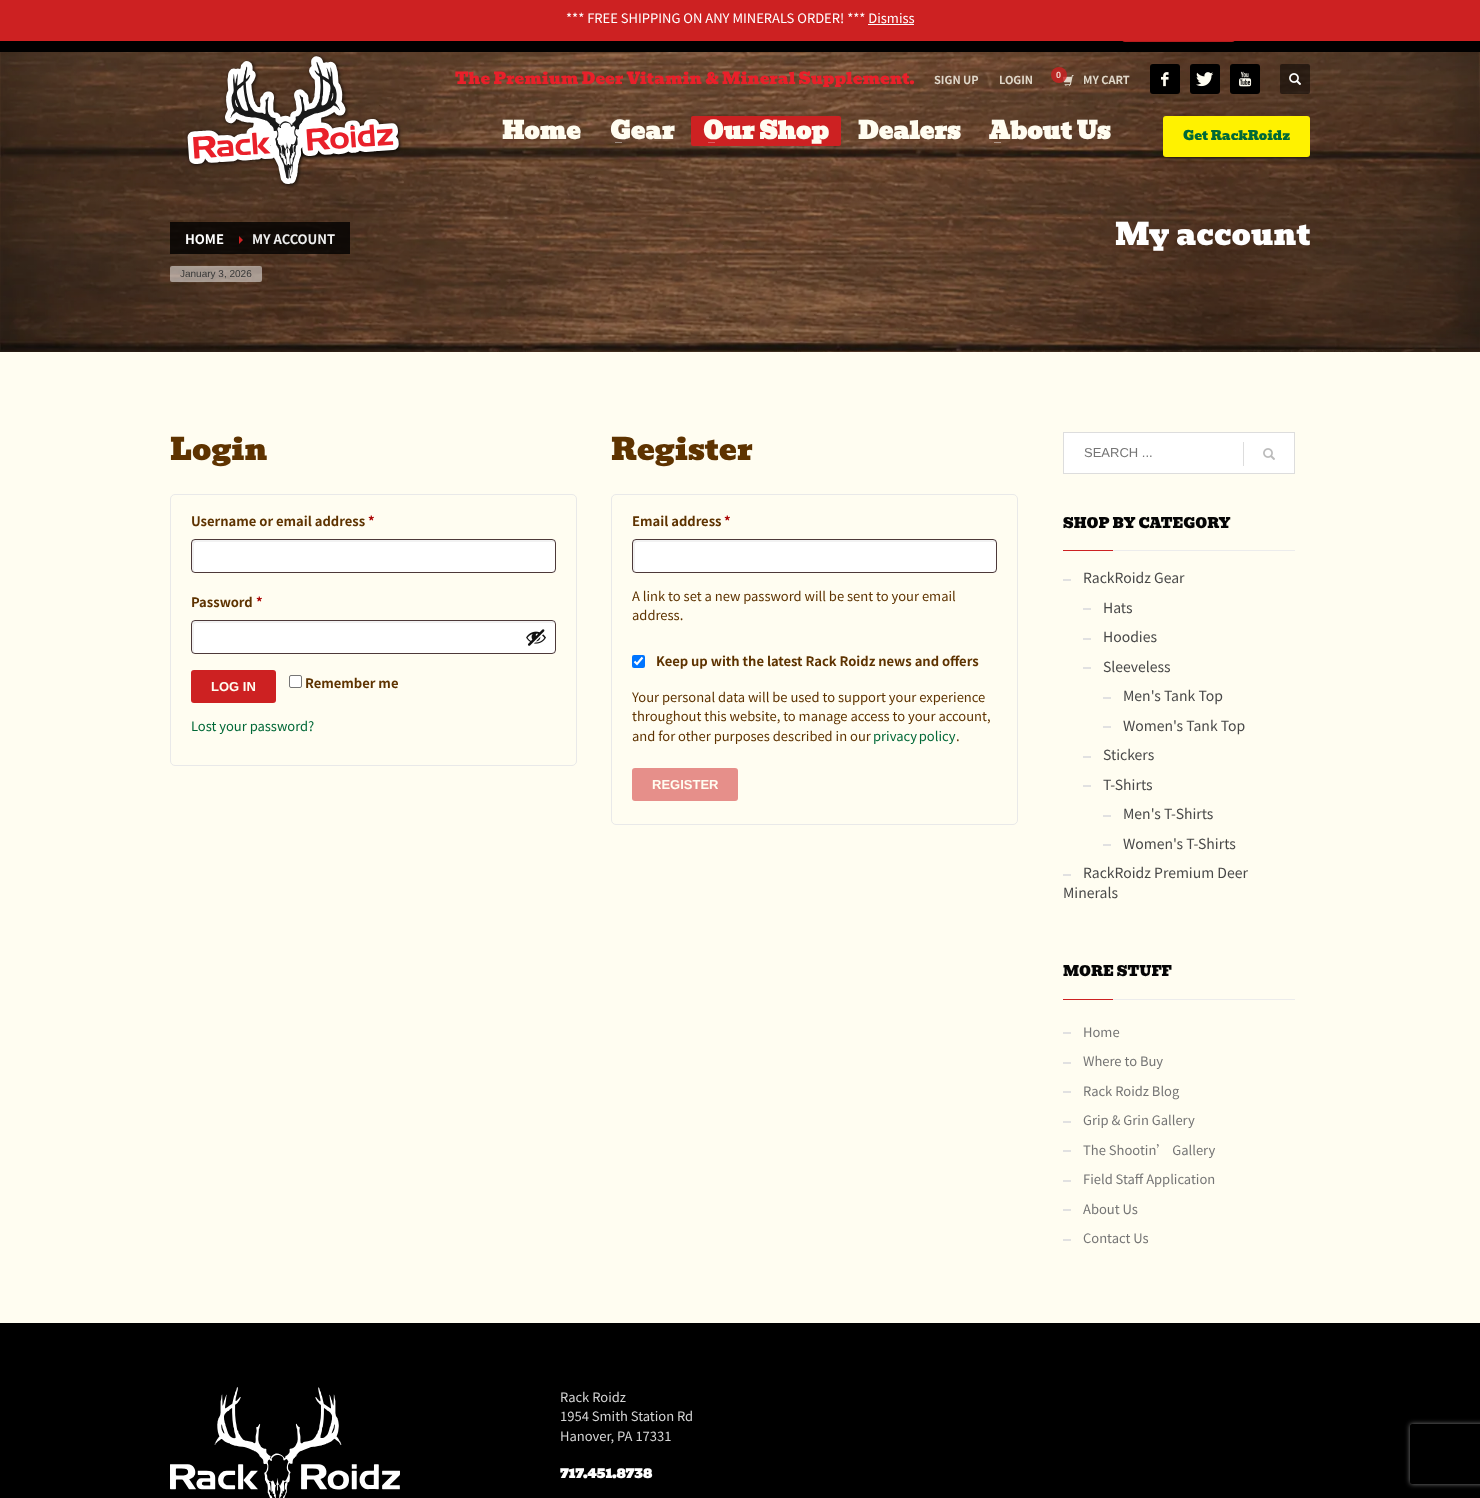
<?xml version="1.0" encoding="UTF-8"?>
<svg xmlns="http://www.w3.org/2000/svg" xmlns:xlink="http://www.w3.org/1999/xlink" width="1480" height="1498">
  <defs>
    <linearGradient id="g1" gradientUnits="userSpaceOnUse" x1="740" y1="52" x2="740" y2="352"><stop offset="0" stop-color="#94694a" /><stop offset="1" stop-color="#4a3525" /></linearGradient>
    <clipPath id="clip1"><path d="M 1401 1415 h 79 v 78 h -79 z m 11 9 h 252 c 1 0 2 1 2 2 v 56 c 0 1 -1 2 -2 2 h -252 c -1 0 -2 -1 -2 -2 v -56 c 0 -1 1 -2 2 -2 z" clip-rule="evenodd" /></clipPath>
  </defs>
  <rect width="100%" height="100%" fill="#fffdf1" />
  <rect y="41" width="1480" height="11" fill="#000000" />
  <rect x="1122" width="113" height="42" rx="3" fill="#cd2122" />
  <rect y="52" width="1480" height="300" fill="url(#g1)" />
  <image x="0" y="52" width="1480" height="300" xlink:href="image7.png" />
  <image x="186" y="54" width="217" height="134" xlink:href="image1.png" />
  <rect y="-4" width="1480" height="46" fill="#000000" fill-opacity="0.2" filter="blur(6.5px)" />
  <rect width="1480" height="41" fill="#cd2122" />
  <rect x="868" y="24" width="46" height="1" fill="#fcfbfe" />
  <image x="1062" y="75" width="12" height="11" xlink:href="image2.png" />
  <circle cx="1059" cy="75" r="8" fill="#cd2122" fill-opacity="0.8" />
  <rect x="1150" y="64" width="30" height="30" rx="3" fill="#000000" />
  <image x="1161" y="72" width="8" height="15" xlink:href="image3.png" />
  <rect x="1190" y="64" width="30" height="30" rx="3" fill="#000000" />
  <image x="1196" y="72" width="18" height="15" xlink:href="image4.png" />
  <rect x="1230" y="64" width="30" height="30" rx="3" fill="#000000" />
  <image x="1239" y="71" width="13" height="16" xlink:href="image5.png" />
  <rect x="1280" y="64" width="30" height="30" rx="2" fill="#000000" fill-opacity="0.5" />
  <image x="1289" y="73" width="12" height="12" xlink:href="image6.png" />
  <rect x="615" y="142" width="7" height="1" fill="#ffffff" fill-opacity="0.4" />
  <rect x="691" y="116" width="150" height="30" rx="2" fill="#cd2122" />
  <rect x="994" y="142" width="7" height="1" fill="#ffffff" fill-opacity="0.4" />
  <rect x="1163" y="116" width="147" height="41" rx="3" fill="#fff200" />
  <rect x="170" y="222" width="59" height="32" fill="#000000" fill-opacity="0.8" />
  <rect x="229" y="222" width="121" height="32" fill="#000000" fill-opacity="0.8" />
  <path d="M 239 244 v -8 l 4 4 z" fill="#cd2122" />
  <rect x="170" y="266" width="92" height="16" rx="2" fill="#ffffff" fill-opacity="0.5" />
  <rect x="170.5" y="494.5" width="406" height="271" rx="4.5" fill="none" stroke="#e9e9e9" />
  <rect x="191" y="539" width="365" height="34" rx="4" fill="#ffffff" />
  <path d="M 197 542 h 358 c -1 -1 -2 -2 -3 -2 h -357 c -2 0 -3 1 -3 3 v 26 c 0 1 1 2 2 3 v -23 c 0 -2 -1 -7 3 -7 z" fill="#f2f2f2" />
  <rect x="191.5" y="539.5" width="364" height="33" rx="3.5" fill="none" stroke="#200707" stroke-opacity="0.8" />
  <rect x="191" y="620" width="365" height="34" rx="4" fill="#ffffff" />
  <path d="M 197 623 h 358 c -1 -1 -2 -2 -3 -2 h -357 c -2 0 -3 1 -3 3 v 26 c 0 1 1 2 2 3 v -23 c 0 -2 -1 -7 3 -7 z" fill="#f2f2f2" />
  <rect x="191.5" y="620.5" width="364" height="33" rx="3.5" fill="none" stroke="#200707" stroke-opacity="0.8" />
  <image x="526" y="629" width="20" height="17" xlink:href="image8.png" />
  <rect x="191" y="670" width="85" height="33" rx="3" fill="#cd2122" />
  <rect x="289.5" y="675.5" width="12" height="12" rx="1.5" fill="#ffffff" stroke="#767676" />
  <rect x="611.5" y="494.5" width="406" height="330" rx="4.5" fill="none" stroke="#e9e9e9" />
  <rect x="632" y="539" width="365" height="34" rx="4" fill="#ffffff" />
  <path d="M 638 542 h 358 c -1 -1 -2 -2 -3 -2 h -357 c -2 0 -3 1 -3 3 v 26 c 0 1 1 2 2 3 v -23 c 0 -2 -1 -7 3 -7 z" fill="#f2f2f2" />
  <rect x="632.5" y="539.5" width="364" height="33" rx="3.5" fill="none" stroke="#200707" stroke-opacity="0.8" />
  <rect x="632" y="655" width="13" height="13" rx="2" fill="#0075ff" />
  <path d="M 634.5 661.5 l 2.5 2.5 l 5.5 -6.5" fill="none" stroke="#ffffff" stroke-width="2.1" />
  <rect x="632" y="768" width="106" height="33" rx="3" fill="#e68f8a" />
  <rect x="1063.5" y="432.5" width="231" height="41" fill="#ffffff" stroke="#dddddd" />
  <rect x="1243" y="442" width="1" height="24" fill="#dddddd" />
  <image x="1263" y="448" width="12" height="12" xlink:href="image9.png" />
  <rect x="1063" y="550" width="50" height="1" fill="#cd2122" />
  <rect x="1113" y="550" width="182" height="1" fill="#ececec" />
  <rect x="1063" y="579" width="8" height="2" fill="#e1e1e1" />
  <rect x="1083" y="608" width="8" height="2" fill="#e1e1e1" />
  <rect x="1083" y="638" width="8" height="2" fill="#e1e1e1" />
  <rect x="1083" y="667" width="8" height="2" fill="#e1e1e1" />
  <rect x="1103" y="697" width="8" height="2" fill="#e1e1e1" />
  <rect x="1103" y="726" width="8" height="2" fill="#e1e1e1" />
  <rect x="1083" y="756" width="8" height="2" fill="#e1e1e1" />
  <rect x="1083" y="785" width="8" height="2" fill="#e1e1e1" />
  <rect x="1103" y="815" width="8" height="2" fill="#e1e1e1" />
  <rect x="1103" y="844" width="8" height="2" fill="#e1e1e1" />
  <rect x="1063" y="874" width="8" height="2" fill="#e1e1e1" />
  <rect x="1063" y="999" width="50" height="1" fill="#cd2122" />
  <rect x="1113" y="999" width="182" height="1" fill="#ececec" />
  <rect x="1063" y="1032" width="8" height="2" fill="#e1e1e1" />
  <rect x="1063" y="1062" width="8" height="2" fill="#e1e1e1" />
  <rect x="1063" y="1091" width="8" height="2" fill="#e1e1e1" />
  <rect x="1063" y="1121" width="8" height="2" fill="#e1e1e1" />
  <rect x="1063" y="1150" width="8" height="2" fill="#e1e1e1" />
  <rect x="1063" y="1180" width="8" height="2" fill="#e1e1e1" />
  <rect x="1063" y="1209" width="8" height="2" fill="#e1e1e1" />
  <rect x="1063" y="1239" width="8" height="2" fill="#e1e1e1" />
  <rect y="1323" width="1480" height="175" fill="#000000" />
  <image x="170" y="1387" width="230" height="111" xlink:href="image10.png" />
  <g clip-path="url(#clip1)">
    <rect x="1410" y="1424" width="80" height="60" rx="2" fill="#808080" filter="blur(2.5px)" />
  </g>
  <text x="566" y="23" style="font-family: Noto Sans HK; font-size: 13px; fill: #ffffff">*** FREE SHIPPING ON ANY MINERALS ORDER! *** Dismiss</text>
  <text x="455" y="84" style="font-family: Bevan; font-size: 16px; fill: #e9202a">The Premium Deer Vitamin &amp; Mineral Supplement.</text>
  <text x="934" y="84" style="font-family: Noto Sans HK; font-size: 11px; font-weight: bold; fill: #e0d8ca">SIGN UP</text>
  <text x="999" y="84" style="font-family: Noto Sans HK; font-size: 11px; font-weight: bold; fill: #e0d8ca">LOGIN</text>
  <text x="1056" y="78" style="font-family: Liberation Sans; font-size: 9px; font-weight: bold; fill: #f1d2c8">0</text>
  <text x="1083" y="84" style="font-family: Noto Sans HK; font-size: 11px; font-weight: bold; fill: #e0d8ca">MY CART</text>
  <text x="502" y="139" style="font-family: Bevan; font-size: 24px; font-weight: bold; fill: #fffdf1">Home</text>
  <text x="610" y="139" style="font-family: Bevan; font-size: 24px; font-weight: bold; fill: #fffdf1">Gear</text>
  <text x="703" y="139" style="font-family: Bevan; font-size: 24px; font-weight: bold; fill: #fffdf1">Our Shop</text>
  <rect x="708" y="142" width="7" height="1" fill="#db5f60" />
  <text x="858" y="139" style="font-family: Bevan; font-size: 24px; font-weight: bold; fill: #fffdf1">Dealers</text>
  <text x="989" y="139" style="font-family: Bevan; font-size: 24px; font-weight: bold; fill: #fffdf1">About Us</text>
  <text x="1183" y="140" style="font-family: Bevan; font-size: 13px; fill: #006837">Get RackRoidz</text>
  <text x="185" y="244" style="font-family: Noto Sans HK; font-size: 13px; font-weight: bold; fill: #ffffff">HOME</text>
  <text x="252" y="244" style="font-family: Noto Sans HK; font-size: 13px; font-weight: bold; fill: #eeeeee">MY ACCOUNT</text>
  <text x="180" y="277" style="font-family: Liberation Sans; font-size: 10px; fill: #383838">January 3, 2026</text>
  <text x="1115" y="245" style="font-family: Bevan; font-size: 30px; fill: #ffffff">My account</text>
  <text x="170" y="460" style="font-family: Bevan; font-size: 30px; fill: #5e3300">Login</text>
  <text x="191" y="526" style="font-family: Noto Sans HK; font-size: 13px; font-weight: bold; fill: #5e3300">Username or email address</text>
  <text x="368" y="526" style="font-family: Noto Sans HK; font-size: 13px; font-weight: bold; fill: #aa0000">*</text>
  <text x="191" y="607" style="font-family: Noto Sans HK; font-size: 13px; font-weight: bold; fill: #5e3300">Password</text>
  <text x="256" y="607" style="font-family: Noto Sans HK; font-size: 13px; font-weight: bold; fill: #aa0000">*</text>
  <text x="211" y="691" style="font-family: Liberation Sans; font-size: 13px; font-weight: bold; fill: #fffdf1">LOG IN</text>
  <text x="305" y="688" style="font-family: Noto Sans HK; font-size: 13px; font-weight: bold; fill: #5e3300">Remember me</text>
  <text x="191" y="731" style="font-family: Noto Sans HK; font-size: 13px; fill: #006837">Lost your password?</text>
  <text x="611" y="460" style="font-family: Bevan; font-size: 30px; fill: #5e3300">Register</text>
  <text x="632" y="526" style="font-family: Noto Sans HK; font-size: 13px; font-weight: bold; fill: #5e3300">Email address</text>
  <text x="724" y="526" style="font-family: Noto Sans HK; font-size: 13px; font-weight: bold; fill: #aa0000">*</text>
  <text x="632" y="601" style="font-family: Noto Sans HK; font-size: 13px; fill: #5e3300">A link to set a new password will be sent to your email</text>
  <text x="632" y="620" style="font-family: Noto Sans HK; font-size: 13px; fill: #5e3300">address.</text>
  <text x="656" y="666" style="font-family: Noto Sans HK; font-size: 13px; font-weight: bold; fill: #5e3300">Keep up with the latest Rack Roidz news and offers</text>
  <text x="632" y="702" style="font-family: Noto Sans HK; font-size: 13px; fill: #5e3300">Your personal data will be used to support your experience</text>
  <text x="632" y="721" style="font-family: Noto Sans HK; font-size: 13px; fill: #5e3300">throughout this website, to manage access to your account,</text>
  <text x="632" y="741" style="font-family: Noto Sans HK; font-size: 13px; fill: #5e3300">and for other purposes described in our</text>
  <text x="873" y="741" word-spacing="-1" style="font-family: Noto Sans HK; font-size: 13px; fill: #006837">privacy policy</text>
  <text x="956" y="741" style="font-family: Noto Sans HK; font-size: 13px; fill: #5e3300">.</text>
  <text x="652" y="789" style="font-family: Liberation Sans; font-size: 13px; font-weight: bold; fill: #fffdf1">REGISTER</text>
  <text x="1084" y="457" style="font-family: Liberation Sans; font-size: 13px; fill: #757575">SEARCH ...</text>
  <text x="1063" y="528" style="font-family: Bevan; font-size: 14px; fill: #050505">SHOP BY CATEGORY</text>
  <text x="1083" y="583" style="font-family: Noto Sans HK; font-size: 14px; fill: #484848">RackRoidz Gear</text>
  <text x="1103" y="613" style="font-family: Noto Sans HK; font-size: 14px; fill: #484848">Hats</text>
  <text x="1103" y="642" style="font-family: Noto Sans HK; font-size: 14px; fill: #484848">Hoodies</text>
  <text x="1103" y="672" style="font-family: Noto Sans HK; font-size: 14px; fill: #484848">Sleeveless</text>
  <text x="1123" y="701" style="font-family: Noto Sans HK; font-size: 14px; fill: #484848">Men's Tank Top</text>
  <text x="1123" y="731" style="font-family: Noto Sans HK; font-size: 14px; fill: #484848">Women's Tank Top</text>
  <text x="1103" y="760" style="font-family: Noto Sans HK; font-size: 14px; fill: #484848">Stickers</text>
  <text x="1103" y="790" style="font-family: Noto Sans HK; font-size: 14px; fill: #484848">T-Shirts</text>
  <text x="1123" y="819" style="font-family: Noto Sans HK; font-size: 14px; fill: #484848">Men's T-Shirts</text>
  <text x="1123" y="849" style="font-family: Noto Sans HK; font-size: 14px; fill: #484848">Women's T-Shirts</text>
  <text x="1083" y="878" style="font-family: Noto Sans HK; font-size: 14px; fill: #484848">RackRoidz Premium Deer</text>
  <text x="1063" y="898" style="font-family: Noto Sans HK; font-size: 14px; fill: #484848">Minerals</text>
  <text x="1063" y="976" style="font-family: Bevan; font-size: 14px; fill: #050505">MORE STUFF</text>
  <text x="1083" y="1037" style="font-family: Noto Sans HK; font-size: 13px; fill: #757575">Home</text>
  <text x="1083" y="1066" style="font-family: Noto Sans HK; font-size: 13px; fill: #757575">Where to Buy</text>
  <text x="1083" y="1096" style="font-family: Noto Sans HK; font-size: 13px; fill: #757575">Rack Roidz Blog</text>
  <text x="1083" y="1125" style="font-family: Noto Sans HK; font-size: 13px; fill: #757575">Grip &amp; Grin Gallery</text>
  <text x="1083" y="1155" style="font-family: Noto Sans HK; font-size: 13px; fill: #757575">The Shootin’ Gallery</text>
  <text x="1083" y="1184" style="font-family: Noto Sans HK; font-size: 13px; fill: #757575">Field Staff Application</text>
  <text x="1083" y="1214" style="font-family: Noto Sans HK; font-size: 13px; fill: #757575">About Us</text>
  <text x="1083" y="1243" style="font-family: Noto Sans HK; font-size: 13px; fill: #757575">Contact Us</text>
  <text x="560" y="1402" style="font-family: Noto Sans HK; font-size: 13px; fill: #d5d5d5">Rack Roidz</text>
  <text x="560" y="1421" style="font-family: Noto Sans HK; font-size: 13px; fill: #d5d5d5">1954 Smith Station Rd</text>
  <text x="560" y="1441" style="font-family: Noto Sans HK; font-size: 13px; fill: #d5d5d5">Hanover, PA 17331</text>
  <text x="560" y="1478" style="font-family: Bevan; font-size: 14px; font-weight: bold; fill: #ffffff">717.451.8738</text>
</svg>
